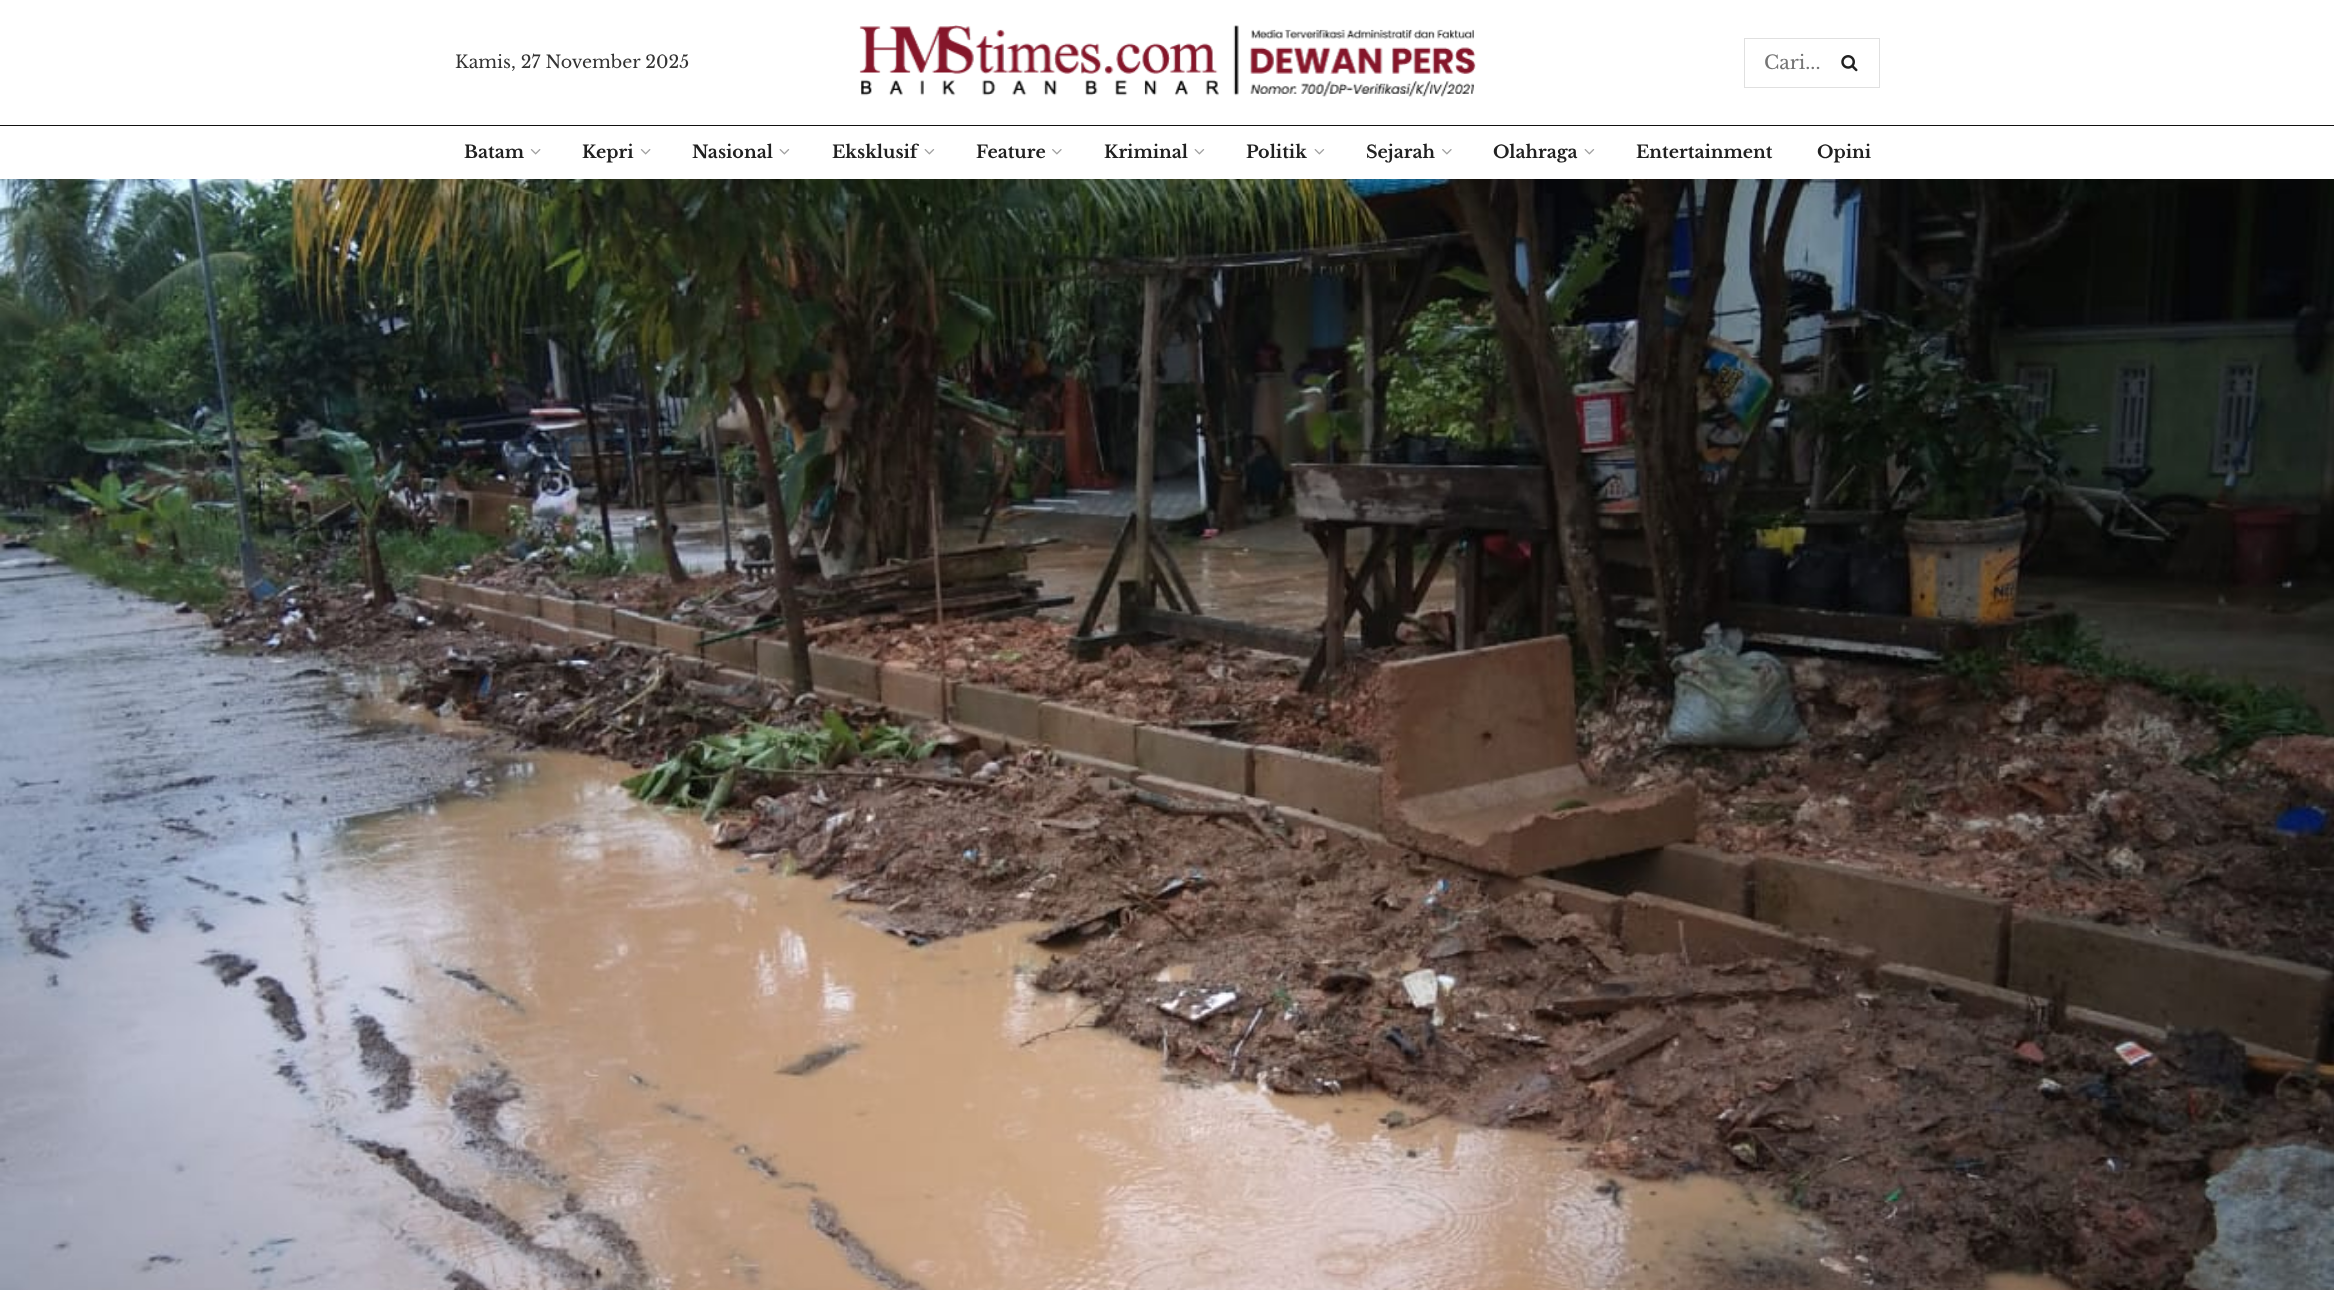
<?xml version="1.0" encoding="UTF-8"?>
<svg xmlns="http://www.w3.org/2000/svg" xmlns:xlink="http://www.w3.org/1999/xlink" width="2334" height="1290">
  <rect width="100%" height="100%" fill="#ffffff" />
  <image x="859" y="25" width="617" height="72" xlink:href="image1.png" />
  <rect x="1744.5" y="38.5" width="135" height="49" fill="none" stroke="#e0e0e0" />
  <image x="1841" y="55" width="17" height="17" xlink:href="image2.png" />
  <rect y="125" width="2334" height="1" fill="#111111" />
  <image x="530" y="149" width="11" height="6" xlink:href="image3.png" />
  <image x="640" y="149" width="11" height="6" xlink:href="image3.png" />
  <image x="779" y="149" width="11" height="6" xlink:href="image4.png" />
  <image x="924" y="149" width="11" height="6" xlink:href="image4.png" />
  <image x="1052" y="149" width="10" height="6" xlink:href="image5.png" />
  <image x="1194" y="149" width="11" height="6" xlink:href="image4.png" />
  <image x="1314" y="149" width="11" height="6" xlink:href="image4.png" />
  <image x="1442" y="149" width="10" height="6" xlink:href="image5.png" />
  <image x="1584" y="149" width="11" height="6" xlink:href="image4.png" />
  <image x="0" y="179" width="2334" height="1111" xlink:href="image6.png" />
  <text x="455" y="68" style="font-family: Libre Baskerville; font-size: 17.5px; fill: #333333">Kamis, 27 November 2025</text>
  <text x="1764" y="69" style="font-family: Libre Baskerville; font-size: 19px; fill: #757575">Cari...</text>
  <text x="464" y="158" style="font-family: Libre Baskerville; font-size: 17.5px; font-weight: bold; fill: #212121">Batam</text>
  <text x="582" y="158" style="font-family: Libre Baskerville; font-size: 17.5px; font-weight: bold; fill: #212121">Kepri</text>
  <text x="692" y="158" style="font-family: Libre Baskerville; font-size: 17.5px; font-weight: bold; fill: #212121">Nasional</text>
  <text x="832" y="158" style="font-family: Libre Baskerville; font-size: 17.5px; font-weight: bold; fill: #212121">Eksklusif</text>
  <text x="976" y="158" style="font-family: Libre Baskerville; font-size: 17.5px; font-weight: bold; fill: #212121">Feature</text>
  <text x="1104" y="158" style="font-family: Libre Baskerville; font-size: 17.5px; font-weight: bold; fill: #212121">Kriminal</text>
  <text x="1246" y="158" style="font-family: Libre Baskerville; font-size: 17.5px; font-weight: bold; fill: #212121">Politik</text>
  <text x="1366" y="158" style="font-family: Libre Baskerville; font-size: 17.5px; font-weight: bold; fill: #212121">Sejarah</text>
  <text x="1493" y="158" style="font-family: Libre Baskerville; font-size: 17.5px; font-weight: bold; fill: #212121">Olahraga</text>
  <text x="1636" y="158" style="font-family: Libre Baskerville; font-size: 17.5px; font-weight: bold; fill: #212121">Entertainment</text>
  <text x="1817" y="158" style="font-family: Libre Baskerville; font-size: 17.5px; font-weight: bold; fill: #212121">Opini</text>
</svg>
